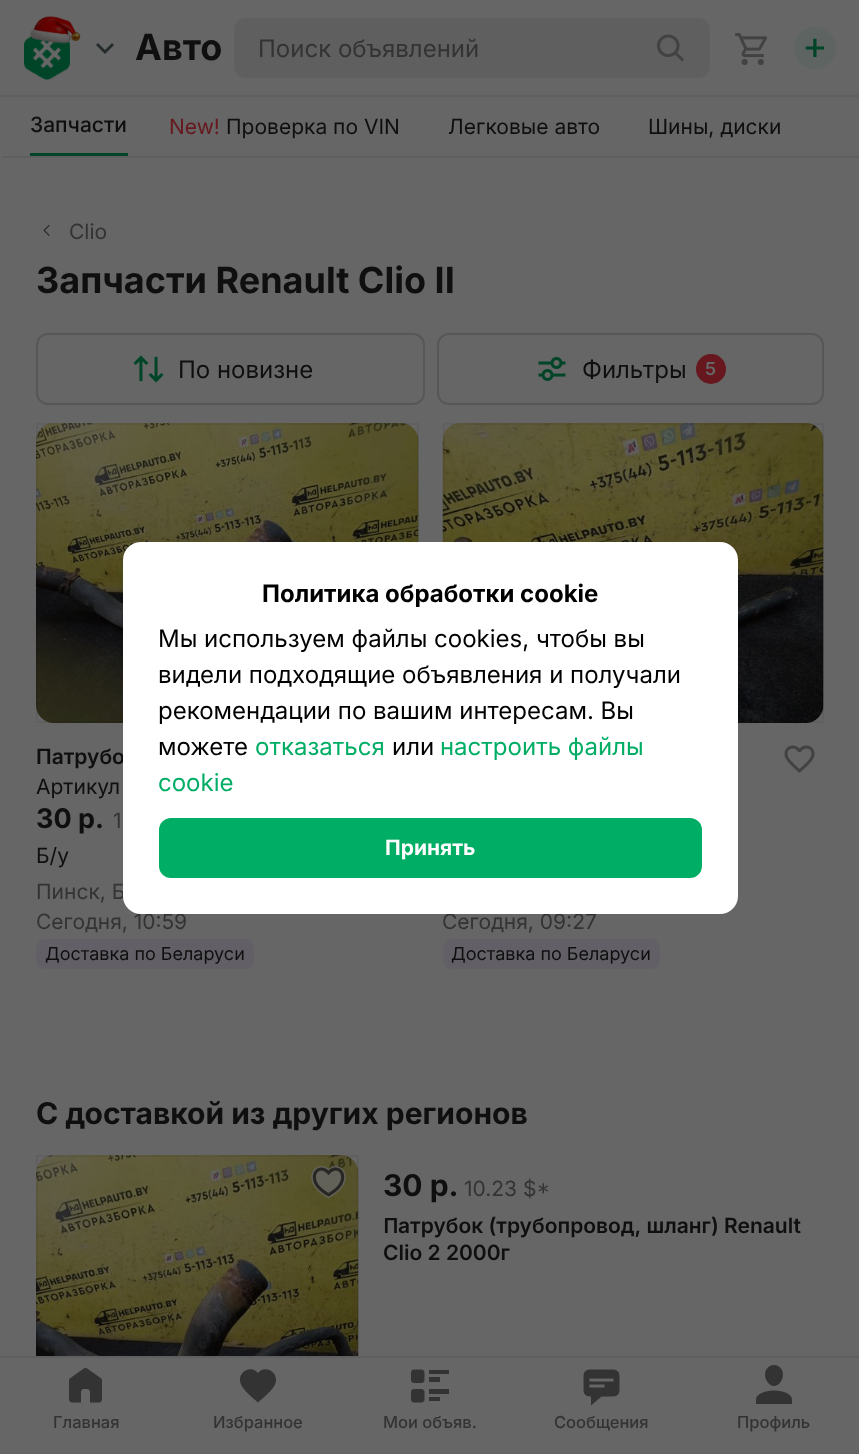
<?xml version="1.0" encoding="UTF-8"?>
<svg xmlns="http://www.w3.org/2000/svg" xmlns:xlink="http://www.w3.org/1999/xlink" width="859" height="1454">
  <rect width="100%" height="100%" fill="#666666" />
  <rect y="95" width="859" height="2" fill="#5f5f5f" />
  <image x="24" y="16" width="57" height="64" xlink:href="image1.png" />
  <path d="M 112 43 l 2 2 l -9 9 l -9 -9 l 2 -2 l 7 7 z" fill="#252a2d" fill-rule="evenodd" />
  <rect x="234" y="18" width="476" height="60" rx="12" fill="#5f5f5f" />
  <image x="657" y="34" width="27" height="28" xlink:href="image2.png" />
  <image x="735" y="33" width="32" height="25" xlink:href="image3.png" />
  <image x="741" y="59" width="23" height="7" xlink:href="image4.png" />
  <circle cx="815" cy="48" r="21" fill="#5e6461" />
  <path d="M 2 156 v 2 h 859 v -60 h -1 v 58 z" fill="#5f5f5f" />
  <rect x="30" y="153" width="98" height="3" fill="#004528" />
  <image x="43" y="224" width="7" height="12" xlink:href="image5.png" />
  <rect x="37" y="334" width="387" height="70" rx="11" fill="none" stroke="#575757" stroke-width="2" />
  <image x="133" y="355" width="31" height="28" xlink:href="image6.png" />
  <rect x="438" y="334" width="385" height="70" rx="11" fill="none" stroke="#575757" stroke-width="2" />
  <image x="538" y="357" width="28" height="24" xlink:href="image7.png" />
  <circle cx="711" cy="369" r="15" fill="#66181e" />
  <rect x="36" y="423" width="383" height="300" rx="18" fill="#636363" />
  <image x="36" y="423" width="383" height="300" xlink:href="image8.png" />
  <rect x="37" y="424" width="381" height="298" fill="none" stroke="#000000" stroke-opacity="0.05" stroke-width="2" />
  <rect x="36" y="939" width="218" height="30" rx="9" fill="#626066" />
  <rect x="443" y="423" width="381" height="300" rx="18" fill="#636363" />
  <image x="442" y="423" width="382" height="300" xlink:href="image9.png" />
  <rect x="444" y="424" width="379" height="298" fill="none" stroke="#000000" stroke-opacity="0.05" stroke-width="2" />
  <image x="784" y="745" width="31" height="28" xlink:href="image10.png" />
  <rect x="443" y="939" width="217" height="30" rx="9" fill="#626066" />
  <rect x="36" y="1155" width="323" height="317" rx="18" fill="#636363" />
  <image x="36" y="1155" width="323" height="201" xlink:href="image11.png" />
  <rect x="37" y="1156" width="321" height="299" fill="none" stroke="#000000" stroke-opacity="0.05" stroke-width="2" />
  <image x="311" y="1166" width="35" height="33" xlink:href="image12.png" />
  <rect x="36" y="1358" width="323" height="96" fill="#666666" />
  <rect y="1356" width="859" height="2" fill="#5f5f5f" />
  <image x="69" y="1368" width="33" height="35" xlink:href="image13.png" />
  <path d="M 258 1402.5 c -5.5 -5 -14 -11.5 -17 -18 c -5 -11.5 9.5 -20.5 17 -11.5 c 7.5 -9 22 0 17 11.5 c -3 6.5 -11.5 13 -17 18 z" fill="#333333" />
  <image x="411" y="1369" width="38" height="34" xlink:href="image14.png" />
  <image x="583" y="1369" width="37" height="37" xlink:href="image15.png" />
  <image x="756" y="1365" width="36" height="39" xlink:href="image16.png" />
  <text x="135" y="60" style="font-family: Inter; font-size: 36px; font-weight: bold; fill: #0f0f0f">Авто</text>
  <text x="258" y="57" style="font-family: Inter; font-size: 24px; fill: #333333">Поиск объявлений</text>
  <text x="802" y="59" style="font-family: Inter; font-size: 39px; fill: #004528">+</text>
  <text x="30" y="132" style="font-family: Inter; font-size: 21px; font-weight: 500; fill: #0f0f0f">Запчасти</text>
  <text x="169" y="134" style="font-family: Inter; font-size: 21px; fill: #66181e">New!</text>
  <text x="226" y="134" style="font-family: Inter; font-size: 21px; fill: #0f0f0f">Проверка по VIN</text>
  <text x="448" y="134" style="font-family: Inter; font-size: 21px; fill: #0f0f0f">Легковые авто</text>
  <text x="648" y="134" style="font-family: Inter; font-size: 21px; fill: #0f0f0f">Шины, диски</text>
  <text x="69" y="239" style="font-family: Inter; font-size: 21px; fill: #333333">Clio</text>
  <text x="36" y="293" style="font-family: Inter; font-size: 36px; font-weight: bold; fill: #0f0f0f">Запчасти Renault Clio II</text>
  <text x="178" y="378" style="font-family: Inter; font-size: 24px; fill: #0f0f0f">По новизне</text>
  <text x="582" y="378" style="font-family: Inter; font-size: 24px; fill: #0f0f0f">Фильтры</text>
  <text x="705" y="375" style="font-family: Inter; font-size: 18px; font-weight: 600; fill: #666666">5</text>
  <text x="36" y="764" style="font-family: Inter; font-size: 21px; font-weight: 600; fill: #0f0f0f">Патрубо</text>
  <text x="36" y="794" style="font-family: Inter; font-size: 21px; fill: #0f0f0f">Артикул</text>
  <text x="36" y="828" style="font-family: Inter; font-size: 27px; font-weight: bold; fill: #0f0f0f">30 р.</text>
  <text x="113" y="828" style="font-family: Inter; font-size: 21px; fill: #333333">1</text>
  <text x="36" y="863" style="font-family: Inter; font-size: 21px; fill: #0f0f0f">Б/у</text>
  <text x="36" y="899" style="font-family: Inter; font-size: 21px; fill: #333333">Пинск, Б</text>
  <text x="36" y="929" style="font-family: Inter; font-size: 21px; fill: #333333">Сегодня, 10:59</text>
  <text x="45" y="960" style="font-family: Inter; font-size: 18px; fill: #0f0f0f">Доставка по Беларуси</text>
  <text x="442" y="929" style="font-family: Inter; font-size: 21px; fill: #333333">Сегодня, 09:27</text>
  <text x="451" y="960" style="font-family: Inter; font-size: 18px; fill: #0f0f0f">Доставка по Беларуси</text>
  <text x="36" y="1124" style="font-family: Inter; font-size: 30px; font-weight: bold; fill: #0f0f0f">С доставкой из других регионов</text>
  <text x="383" y="1196" style="font-family: Inter; font-size: 30px; font-weight: bold; fill: #0f0f0f">30 р.</text>
  <text x="464" y="1196" style="font-family: Inter; font-size: 21px; fill: #333333">10.23 $*</text>
  <text x="383" y="1233" style="font-family: Noto Sans; font-size: 21px; font-weight: 600; fill: #0f0f0f">П</text>
  <text x="398" y="1233" style="font-family: Inter; font-size: 21px; font-weight: 600; fill: #0f0f0f">атрубок (трубопровод, шланг) Renault</text>
  <text x="383" y="1260" style="font-family: Inter; font-size: 21px; font-weight: 600; fill: #0f0f0f">Clio 2 2000г</text>
  <rect x="123" y="542" width="615" height="372" rx="18" fill="#ffffff" />
  <text x="262" y="602" style="font-family: Inter; font-size: 24px; font-weight: bold; fill: #000000">Политика обработки cookie</text>
  <text x="158" y="647" style="font-family: Inter; font-size: 24px; fill: #000000">Мы используем файлы cookies, чтобы вы</text>
  <text x="158" y="683" style="font-family: Inter; font-size: 24px; fill: #000000">видели подходящие объявления и получали</text>
  <text x="158" y="719" style="font-family: Inter; font-size: 24px; fill: #000000">рекомендации по вашим интересам. Вы</text>
  <text x="158" y="755" style="font-family: Inter; font-size: 24px; fill: #000000">можете</text>
  <text x="255" y="755" style="font-family: Inter; font-size: 24px; fill: #00ad64">отказаться</text>
  <text x="392" y="755" style="font-family: Inter; font-size: 24px; fill: #000000">или</text>
  <text x="440" y="755" style="font-family: Inter; font-size: 24px; fill: #00ad64">настроить файлы</text>
  <text x="158" y="791" style="font-family: Inter; font-size: 24px; fill: #00ad64">cookie</text>
  <rect x="159" y="818" width="543" height="60" rx="12" fill="#00ad64" />
  <text x="385" y="855" style="font-family: Inter; font-size: 21px; font-weight: bold; fill: #ffffff">Принять</text>
  <text x="53" y="1428" style="font-family: Inter; font-size: 16.5px; font-weight: 500; fill: #333333">Главная</text>
  <text x="213" y="1428" style="font-family: Inter; font-size: 16.5px; font-weight: 500; fill: #333333">Избранное</text>
  <text x="383" y="1428" style="font-family: Inter; font-size: 16.5px; font-weight: 500; fill: #333333">Мои объяв.</text>
  <text x="554" y="1428" style="font-family: Inter; font-size: 16.5px; font-weight: 500; fill: #333333">Сообщения</text>
  <text x="737" y="1428" style="font-family: Inter; font-size: 16.5px; font-weight: 500; fill: #333333">Профиль</text>
</svg>
